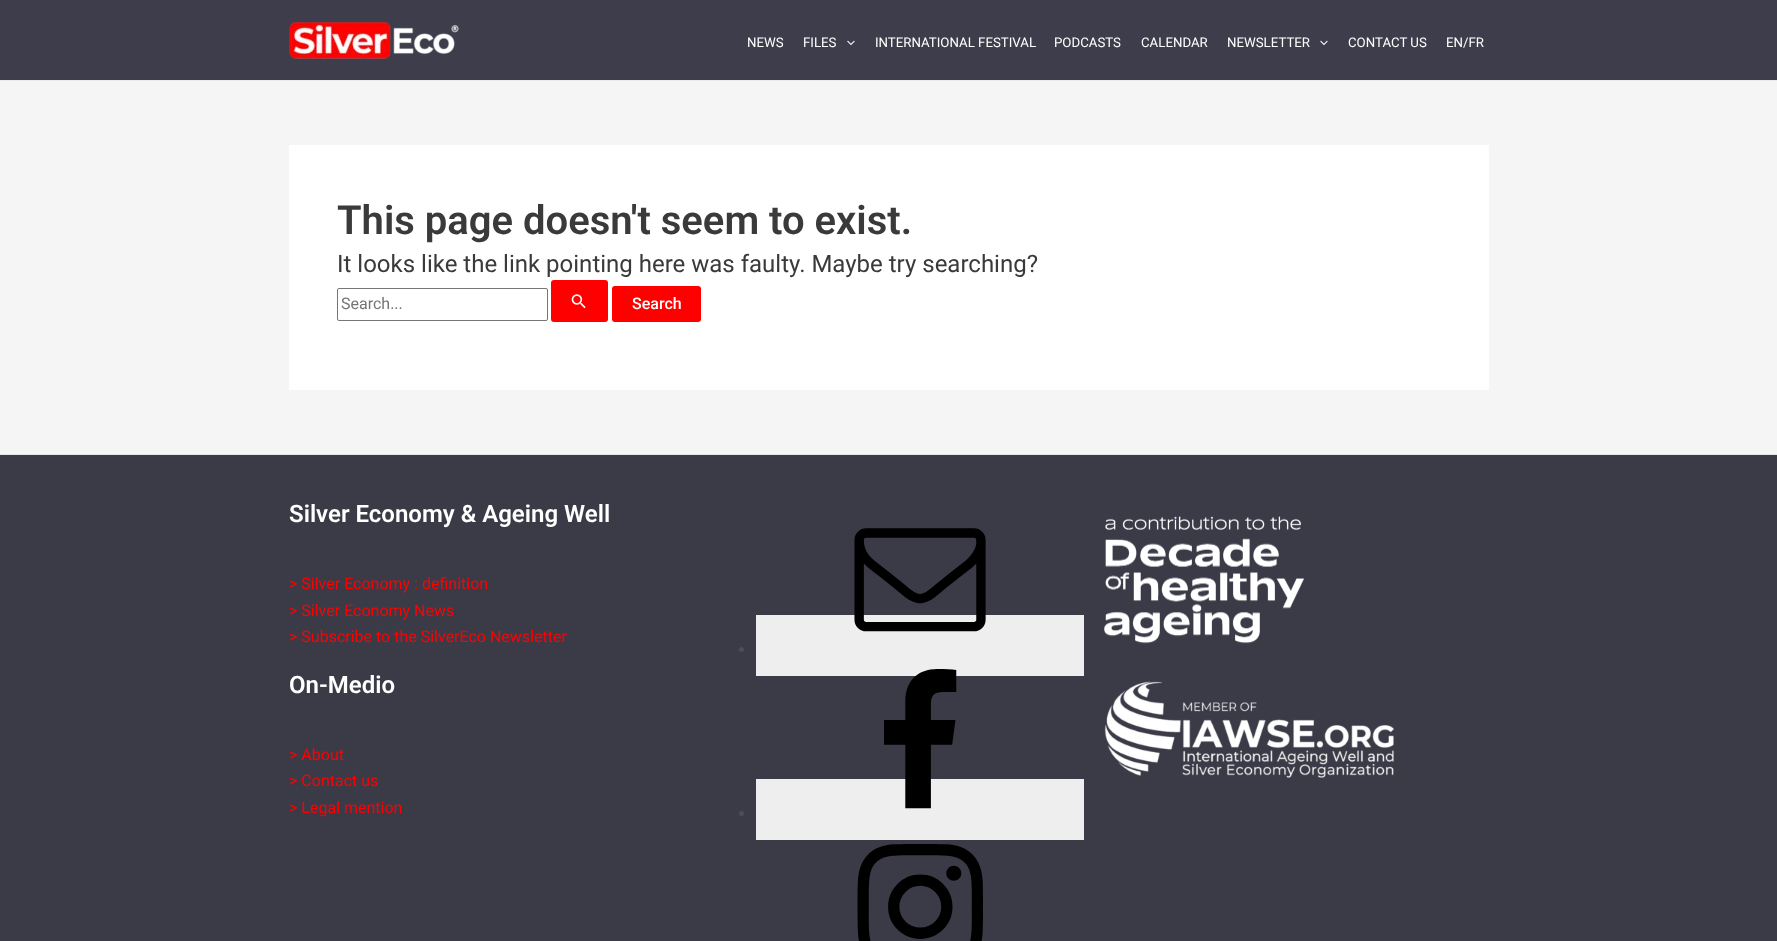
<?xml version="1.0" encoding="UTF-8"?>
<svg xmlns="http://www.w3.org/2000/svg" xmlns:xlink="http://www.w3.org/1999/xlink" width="1777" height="941">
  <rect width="100%" height="100%" fill="#f5f5f5" />
  <rect width="1777" height="80" fill="#3d3d4c" />
  <rect y="80" width="1777" height="1" fill="#eaeaea" />
  <image x="289" y="21" width="170" height="38" xlink:href="image1.png" />
  <image x="847" y="40" width="8" height="6" xlink:href="image2.png" />
  <image x="1320" y="40" width="8" height="6" xlink:href="image2.png" />
  <rect x="289" y="145" width="1200" height="245" fill="#ffffff" />
  <rect x="337.5" y="288.5" width="210" height="32" rx="1.5" fill="none" stroke="#767676" />
  <rect x="551" y="280" width="57" height="42" rx="3" fill="#ff0000" />
  <image x="571" y="294" width="15" height="15" xlink:href="image3.png" />
  <rect x="612" y="286" width="89" height="36" rx="3" fill="#ff0000" />
  <rect y="455" width="1777" height="486" fill="#3b3b48" />
  <rect y="454" width="1777" height="1" fill="#e6e6e6" />
  <rect x="756" y="615" width="328" height="61" fill="#eeeeee" />
  <image x="854" y="528" width="132" height="104" xlink:href="image4.png" />
  <circle cx="741.5" cy="649.5" r="2.5" fill="#4b4f58" />
  <rect x="756" y="779" width="328" height="61" fill="#eeeeee" />
  <image x="884" y="669" width="73" height="140" xlink:href="image5.png" />
  <circle cx="741.5" cy="813.5" r="2.5" fill="#4b4f58" />
  <image x="857" y="844" width="126" height="97" xlink:href="image6.png" />
  <image x="1104" y="516" width="200" height="128" xlink:href="image7.png" />
  <image x="1104" y="681" width="291" height="97" xlink:href="image8.png" />
  <text x="747" y="47" style="font-family: Roboto; font-size: 13.25px; fill: #ffffff">NEWS</text>
  <text x="803" y="47" style="font-family: Roboto; font-size: 13.25px; fill: #ffffff">FILES</text>
  <text x="875" y="47" style="font-family: Roboto; font-size: 13.25px; fill: #ffffff">INTERNATIONAL FESTIVAL</text>
  <text x="1054" y="47" style="font-family: Roboto; font-size: 13.25px; fill: #ffffff">PODCASTS</text>
  <text x="1141" y="47" style="font-family: Roboto; font-size: 13.25px; fill: #ffffff">CALENDAR</text>
  <text x="1227" y="47" style="font-family: Roboto; font-size: 13.25px; fill: #ffffff">NEWSLETTER</text>
  <text x="1348" y="47" style="font-family: Roboto; font-size: 13.25px; fill: #ffffff">CONTACT US</text>
  <text x="1446" y="47" style="font-family: Roboto; font-size: 13.25px; fill: #ffffff">EN/FR</text>
  <text x="337" y="234" style="font-family: Roboto; font-size: 40px; font-weight: 600; fill: #3a3a3a">This page doesn't seem to exist.</text>
  <text x="337" y="272" style="font-family: Roboto; font-size: 24px; fill: #3a3a3a">It looks like the link pointing here was faulty. Maybe try searching?</text>
  <text x="341" y="309" style="font-family: Roboto; font-size: 16px; fill: #757575">Search...</text>
  <text x="632" y="309" style="font-family: Roboto; font-size: 16px; font-weight: 500; fill: #ffffff">Search</text>
  <text x="289" y="522" style="font-family: Roboto; font-size: 24px; font-weight: 600; fill: #ffffff">Silver Economy &amp; Ageing Well</text>
  <text x="289" y="589" style="font-family: Roboto; font-size: 16px; fill: #ff0000">&gt; Silver Economy : definition</text>
  <text x="289" y="616" style="font-family: Roboto; font-size: 16px; fill: #ff0000">&gt; Silver Economy News</text>
  <text x="289" y="642" style="font-family: Roboto; font-size: 16px; fill: #ff0000">&gt; Subscribe to the SilverEco Newsletter</text>
  <text x="289" y="693" style="font-family: Roboto; font-size: 24px; font-weight: 600; fill: #ffffff">On-Medio</text>
  <text x="289" y="760" style="font-family: Roboto; font-size: 16px; fill: #ff0000">&gt; About</text>
  <text x="289" y="786" style="font-family: Roboto; font-size: 16px; fill: #ff0000">&gt; Contact us</text>
  <text x="289" y="813" style="font-family: Roboto; font-size: 16px; fill: #ff0000">&gt; Legal mention</text>
</svg>
